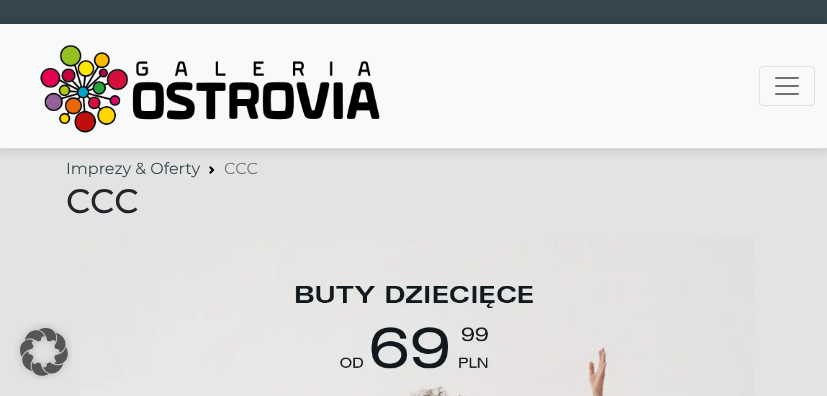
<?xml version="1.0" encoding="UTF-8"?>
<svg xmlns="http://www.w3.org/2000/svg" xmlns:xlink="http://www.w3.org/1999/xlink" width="827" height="396">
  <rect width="100%" height="100%" fill="#37464c" />
  <rect y="149" width="827" height="247" fill="#e3e3e3" />
  <rect x="-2" y="22" width="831" height="129" fill="#000000" fill-opacity="0.12" filter="blur(4px)" />
  <rect y="24" width="827" height="124" fill="#f8f9fa" />
  <rect y="148" width="827" height="1" fill="#d9dadb" />
  <image x="40" y="45" width="340" height="88" xlink:href="image1.png" />
  <rect x="759.5" y="66.5" width="55" height="39" rx="3.5" fill="none" stroke="#dfe0e1" />
  <image x="775" y="77" width="24" height="18" xlink:href="image2.png" />
  <image x="209" y="166" width="6" height="8" xlink:href="image3.png" />
  <image x="80" y="238" width="674" height="158" xlink:href="image4.png" />
  <image x="15" y="323" width="57" height="57" xlink:href="image5.png" />
  <text x="66" y="174" style="font-family: Montserrat; font-size: 16px; fill: #37464c">Imprezy &amp; Oferty</text>
  <text x="224" y="174" style="font-family: Montserrat; font-size: 16px; fill: #6c757d">CCC</text>
  <text x="66" y="213" style="font-family: Montserrat; font-size: 34px; font-weight: 500; fill: #212529">CCC</text>
</svg>
